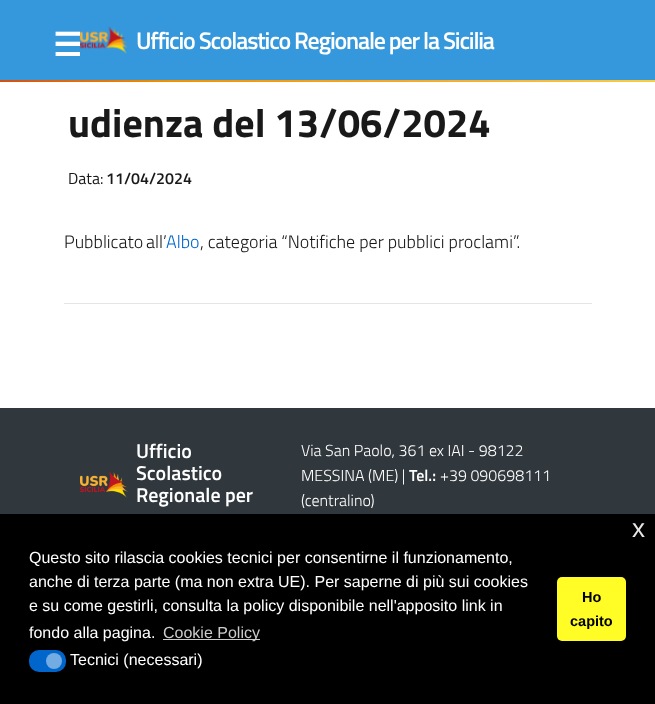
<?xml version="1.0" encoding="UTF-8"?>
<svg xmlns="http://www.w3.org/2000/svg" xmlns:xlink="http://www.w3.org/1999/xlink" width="655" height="704">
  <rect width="100%" height="100%" fill="#ffffff" />
  <image x="0" y="80" width="655" height="2" xlink:href="image1.png" />
  <rect width="655" height="80" fill="#3598dc" />
  <image x="79" y="26" width="49" height="28" xlink:href="image2.png" />
  <rect x="64" y="303" width="528" height="1" fill="#e5e5e5" />
  <rect y="408" width="655" height="106" fill="#30373d" />
  <image x="80" y="470" width="48" height="28" xlink:href="image3.png" />
  <rect y="514" width="655" height="190" fill="#000000" />
  <rect x="163" y="639" width="97" height="1" fill="#cccccc" />
  <rect x="29" y="650" width="37" height="22" rx="10" fill="#0066cc" />
  <circle cx="54" cy="661" r="8" fill="#73abe3" />
  <rect x="557" y="577" width="69" height="64" rx="5" fill="#fffc26" />
  <text x="53" y="56" style="font-family: DejaVu Sans; font-size: 32px; font-weight: bold; fill: #ffffff">☰</text>
  <text x="136" y="49" style="font-family: Titillium Web; font-size: 24px; font-weight: 600; letter-spacing: -1.2px; fill: #ffffff">Ufficio Scolastico Regionale per la Sicilia</text>
  <text x="68" y="137" style="font-family: Titillium Web; font-size: 40px; font-weight: bold; fill: #19191a">udienza del 13/06/2024</text>
  <text x="68" y="184" style="font-family: Titillium Web; font-size: 16px; fill: #19191a">Data:</text>
  <text x="106" y="184" style="font-family: Titillium Web; font-size: 16px; font-weight: 600; fill: #19191a">11/04/2024</text>
  <text x="64" y="248" word-spacing="-1" style="font-family: Titillium Web; font-size: 18px; font-weight: 300; fill: #19191a">Pubblicato all’</text>
  <text x="166" y="248" style="font-family: Titillium Web; font-size: 18px; font-weight: 300; fill: #0066cc">Albo</text>
  <text x="200" y="248" style="font-family: Titillium Web; font-size: 18px; font-weight: 300; fill: #19191a">, categoria “Notifiche per pubblici proclami”.</text>
  <text x="136" y="458" style="font-family: Titillium Web; font-size: 20px; font-weight: 600; fill: #ffffff">Ufficio</text>
  <text x="136" y="480" style="font-family: Titillium Web; font-size: 20px; font-weight: 600; fill: #ffffff">Scolastico</text>
  <text x="136" y="502" style="font-family: Titillium Web; font-size: 20px; font-weight: 600; fill: #ffffff">Regionale per</text>
  <text x="301" y="456" style="font-family: Titillium Web; font-size: 16px; font-weight: 300; fill: #ffffff">Via San Paolo, 361 ex IAI - 98122</text>
  <text x="301" y="481" style="font-family: Titillium Web; font-size: 16px; font-weight: 300; fill: #ffffff">MESSINA (ME) |</text>
  <text x="409" y="481" style="font-family: Titillium Web; font-size: 16px; font-weight: 600; fill: #ffffff">Tel.:</text>
  <text x="440" y="481" style="font-family: Titillium Web; font-size: 16px; font-weight: 300; fill: #ffffff">+39 090698111</text>
  <text x="301" y="506" style="font-family: Titillium Web; font-size: 16px; font-weight: 300; fill: #ffffff">(centralino)</text>
  <text x="632" y="537" style="font-family: Liberation Sans; font-size: 26px; fill: #e6e6e6">x</text>
  <text x="29" y="563" style="font-family: Liberation Sans; font-size: 16px; fill: #ffffff">Questo sito rilascia cookies tecnici per consentirne il funzionamento,</text>
  <text x="29" y="587" style="font-family: Liberation Sans; font-size: 16px; fill: #ffffff">anche di terza parte (ma non extra UE). Per saperne di più sui cookies</text>
  <text x="29" y="611" style="font-family: Liberation Sans; font-size: 16px; fill: #ffffff">e su come gestirli, consulta la policy disponibile nell'apposito link in</text>
  <text x="29" y="638" style="font-family: Liberation Sans; font-size: 16px; fill: #ffffff">fondo alla pagina.</text>
  <text x="163" y="638" style="font-family: Liberation Sans; font-size: 16px; fill: #cccccc">Cookie Policy</text>
  <text x="70" y="665" style="font-family: Liberation Sans; font-size: 16px; fill: #ffffff">Tecnici (necessari)</text>
  <text x="582" y="602" style="font-family: Liberation Sans; font-size: 14.5px; font-weight: bold; fill: #000000">Ho</text>
  <text x="570" y="626" style="font-family: Liberation Sans; font-size: 14.5px; font-weight: bold; fill: #000000">capito</text>
</svg>
